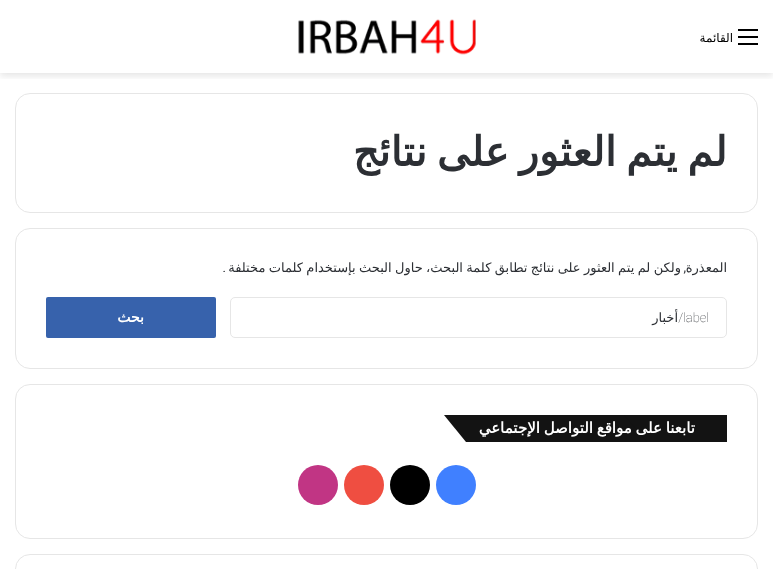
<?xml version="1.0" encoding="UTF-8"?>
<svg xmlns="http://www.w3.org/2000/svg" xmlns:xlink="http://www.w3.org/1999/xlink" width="773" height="569">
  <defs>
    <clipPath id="clip1"><rect x="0" y="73" width="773" height="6" /></clipPath>
  </defs>
  <rect width="100%" height="100%" fill="#ffffff" />
  <g clip-path="url(#clip1)">
    <rect y="3" width="773" height="73" fill="#000000" fill-opacity="0.1" filter="blur(3.5px)" />
  </g>
  <rect x="738" y="36" width="20" height="2" fill="#000000" />
  <rect x="738" y="29" width="20" height="2" fill="#000000" />
  <rect x="738" y="43" width="20" height="2" fill="#000000" />
  <image x="298" y="19" width="178" height="36" xlink:href="image1.png" />
  <rect x="15.5" y="93.5" width="742" height="119" rx="14.5" fill="none" stroke="#e6e6e6" />
  <rect x="15.5" y="228.5" width="742" height="140" rx="14.5" fill="none" stroke="#e6e6e6" />
  <rect x="230.5" y="297.5" width="496" height="40" rx="4.5" fill="none" stroke="#e6e6e6" />
  <rect x="46" y="297" width="170" height="41" rx="2" fill="#3762ac" />
  <rect x="15.5" y="384.5" width="742" height="154" rx="14.5" fill="none" stroke="#e6e6e6" />
  <rect x="624" y="415" width="103" height="27" fill="#131313" />
  <path d="M 444 415 h 180 l 23 27 h -181 z" fill="#131313" />
  <circle cx="456" cy="485" r="20" fill="#4080ff" />
  <circle cx="410" cy="485" r="20" fill="#000000" />
  <circle cx="364" cy="485" r="20" fill="#ef4e41" />
  <circle cx="318" cy="485" r="20" fill="#c13584" />
  <rect x="15.5" y="554.5" width="742" height="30" rx="14.5" fill="none" stroke="#e6e6e6" />
  <text x="733" y="42" style="font-family: DejaVu Sans; font-size: 12px; direction: rtl; fill: #000000">القائمة</text>
  <text x="727" y="166" word-spacing="-3" style="font-family: DejaVu Sans; font-size: 41px; font-weight: bold; direction: rtl; fill: #2c2f34">لم يتم العثور على نتائج</text>
  <text x="681" y="272" word-spacing="-0.75" style="font-family: DejaVu Sans; font-size: 13px; direction: rtl; fill: #2c2f34">ولكن لم يتم العثور على نتائج تطابق كلمة البحث، حاول البحث بإستخدام كلمات مختلفة</text>
  <text x="727" y="272" style="font-family: DejaVu Sans; font-size: 13px; direction: rtl; fill: #2c2f34">المعذرة</text>
  <text x="226" y="272" style="font-family: Roboto; font-size: 13px; direction: rtl; fill: #2c2f34">.</text>
  <text x="686" y="272" style="font-family: Roboto; font-size: 13px; direction: rtl; fill: #2c2f34">,</text>
  <text x="709" y="322" style="font-family: Roboto; font-size: 13px; font-weight: 100; direction: rtl; fill: #2c2f34">label/</text>
  <text x="678" y="322" style="font-family: DejaVu Sans; font-size: 13px; direction: rtl; fill: #2c2f34">أخبار</text>
  <text x="144" y="322" style="font-family: DejaVu Sans; font-size: 14px; font-weight: bold; direction: rtl; fill: #ffffff">بحث</text>
  <text x="695" y="433" word-spacing="-1" style="font-family: DejaVu Sans; font-size: 15px; font-weight: bold; direction: rtl; fill: #ffffff">تابعنا على مواقع التواصل الإجتماعي</text>
</svg>
